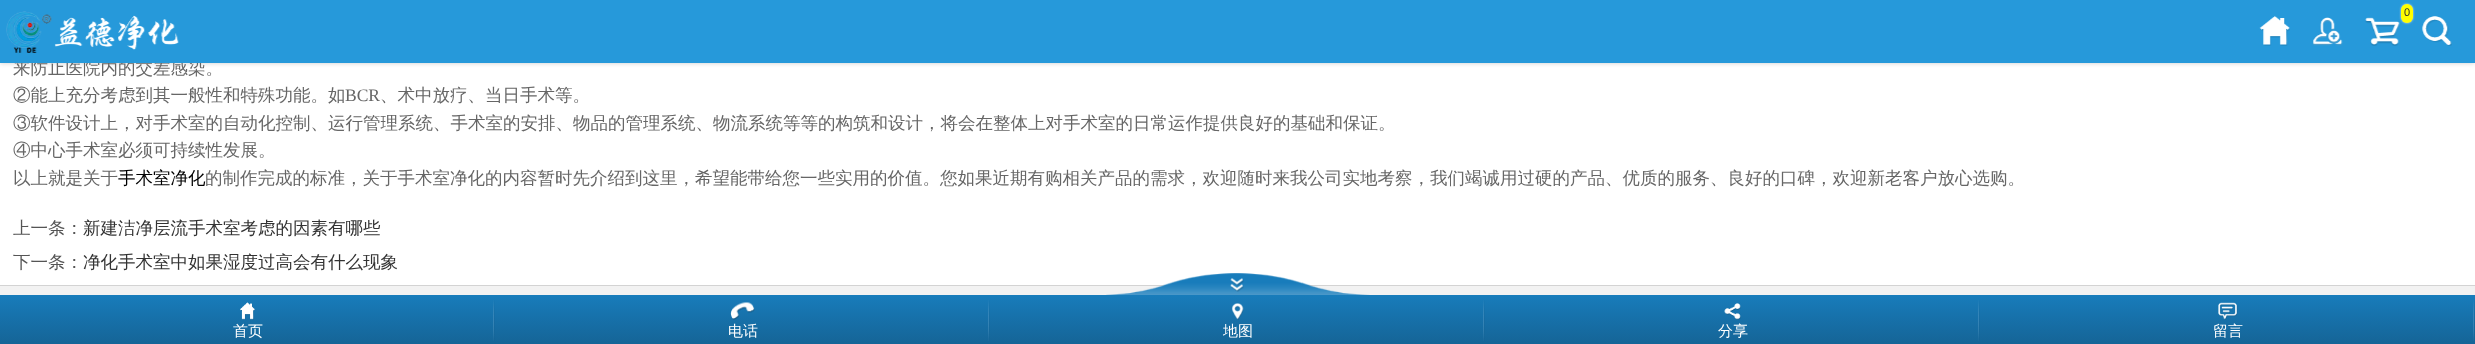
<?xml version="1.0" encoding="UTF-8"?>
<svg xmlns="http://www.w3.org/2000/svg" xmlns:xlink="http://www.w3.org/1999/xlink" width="2475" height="344">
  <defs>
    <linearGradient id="g1" gradientUnits="userSpaceOnUse" x1="0" y1="295" x2="0" y2="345"><stop offset="0" stop-color="#187cbb" /><stop offset="1" stop-color="#156496" /></linearGradient>
  </defs>
  <rect width="100%" height="100%" fill="#ffffff" />
  <rect width="2475" height="63" fill="#cccccc" filter="blur(2.5px)" />
  <rect y="286" width="2475" height="9" fill="#f2f2f2" />
  <rect y="285" width="2475" height="1" fill="#d3d3d3" />
  <image x="1106" y="273" width="264" height="22" xlink:href="image6.png" />
  <rect y="295" width="2475" height="49" fill="url(#g1)" />
  <image x="240" y="302" width="15" height="18" xlink:href="image7.png" />
  <image x="493" y="300" width="2" height="41" xlink:href="image8.png" />
  <image x="730" y="302" width="25" height="18" xlink:href="image9.png" />
  <image x="988" y="300" width="2" height="41" xlink:href="image8.png" />
  <image x="1231" y="303" width="13" height="17" xlink:href="image10.png" />
  <image x="1483" y="300" width="2" height="41" xlink:href="image8.png" />
  <image x="1724" y="303" width="17" height="17" xlink:href="image11.png" />
  <image x="1978" y="300" width="2" height="41" xlink:href="image8.png" />
  <image x="2218" y="302" width="20" height="18" xlink:href="image12.png" />
  <image x="2473" y="300" width="2" height="41" xlink:href="image8.png" />
  <text x="13" y="74" style="font-family: WenQuanYi Zen Hei; font-size: 17.5px; font-weight: 500; fill: #666666">来防止医院内的交差感染。</text>
  <rect width="2475" height="63" fill="#2699da" />
  <image x="2365" y="17" width="35" height="29" xlink:href="image2.png" />
  <rect x="2401" y="4" width="12" height="19" rx="6" fill="#dddddd" filter="blur(1px)" />
  <rect x="2401" y="4" width="12" height="19" rx="6" fill="#ffff00" />
  <text x="2404" y="16" style="font-family: Liberation Sans; font-size: 11px; fill: #333333">0</text>
  <image x="2259" y="16" width="31" height="30" xlink:href="image3.png" />
  <image x="2312" y="17" width="31" height="29" xlink:href="image4.png" />
  <image x="2422" y="16" width="30" height="30" xlink:href="image5.png" />
  <image x="6" y="11" width="173" height="42" xlink:href="image1.png" />
  <text x="13" y="101" style="font-family: WenQuanYi Zen Hei; font-size: 17.5px; font-weight: 500; fill: #666666">②能上充分考虑到其一般性和特殊功能。如</text>
  <text x="345" y="101" style="font-family: Liberation Serif; font-size: 17.5px; fill: #666666">BCR</text>
  <text x="380" y="101" style="font-family: WenQuanYi Zen Hei; font-size: 17.5px; font-weight: 500; fill: #666666">、术中放疗、当日手术等。</text>
  <text x="13" y="129" style="font-family: WenQuanYi Zen Hei; font-size: 17.5px; font-weight: 500; fill: #666666">③软件设计上，对手术室的自动化控制、运行管理系统、手术室的安排、物品的管理系统、物流系统等等的构筑和设计，将会在整体上对手术室的日常运作提供良好的基础和保证。</text>
  <text x="13" y="156" style="font-family: WenQuanYi Zen Hei; font-size: 17.5px; font-weight: 500; fill: #666666">④中心手术室必须可持续性发展。</text>
  <text x="13" y="184" style="font-family: WenQuanYi Zen Hei; font-size: 17.5px; font-weight: 500; fill: #666666">以上就是关于</text>
  <text x="118" y="184" style="font-family: WenQuanYi Zen Hei; font-size: 17.5px; font-weight: 500; fill: #000000">手术室净化</text>
  <text x="205" y="184" style="font-family: WenQuanYi Zen Hei; font-size: 17.5px; font-weight: 500; fill: #666666">的制作完成的标准，关于手术室净化的内容暂时先介绍到这里，希望能带给您一些实用的价值。您如果近期有购相关产品的需求，欢迎随时来我公司实地考察，我们竭诚用过硬的产品、优质的服务、良好的口碑，欢迎新老客户放心选购。</text>
  <text x="13" y="234" style="font-family: WenQuanYi Zen Hei; font-size: 17.5px; font-weight: 500; fill: #555555">上一条：</text>
  <text x="83" y="234" style="font-family: WenQuanYi Zen Hei; font-size: 17.5px; font-weight: 500; fill: #333333">新建洁净层流手术室考虑的因素有哪些</text>
  <text x="13" y="268" style="font-family: WenQuanYi Zen Hei; font-size: 17.5px; font-weight: 500; fill: #555555">下一条：</text>
  <text x="83" y="268" style="font-family: WenQuanYi Zen Hei; font-size: 17.5px; font-weight: 500; fill: #333333">净化手术室中如果湿度过高会有什么现象</text>
  <text x="233" y="336" style="font-family: WenQuanYi Zen Hei; font-size: 15px; font-weight: 500; fill: #ffffff">首页</text>
  <text x="728" y="336" style="font-family: WenQuanYi Zen Hei; font-size: 15px; font-weight: 500; fill: #ffffff">电话</text>
  <text x="1223" y="336" style="font-family: WenQuanYi Zen Hei; font-size: 15px; font-weight: 500; fill: #ffffff">地图</text>
  <text x="1718" y="336" style="font-family: WenQuanYi Zen Hei; font-size: 15px; font-weight: 500; fill: #ffffff">分享</text>
  <text x="2213" y="336" style="font-family: WenQuanYi Zen Hei; font-size: 15px; font-weight: 500; fill: #ffffff">留言</text>
</svg>
